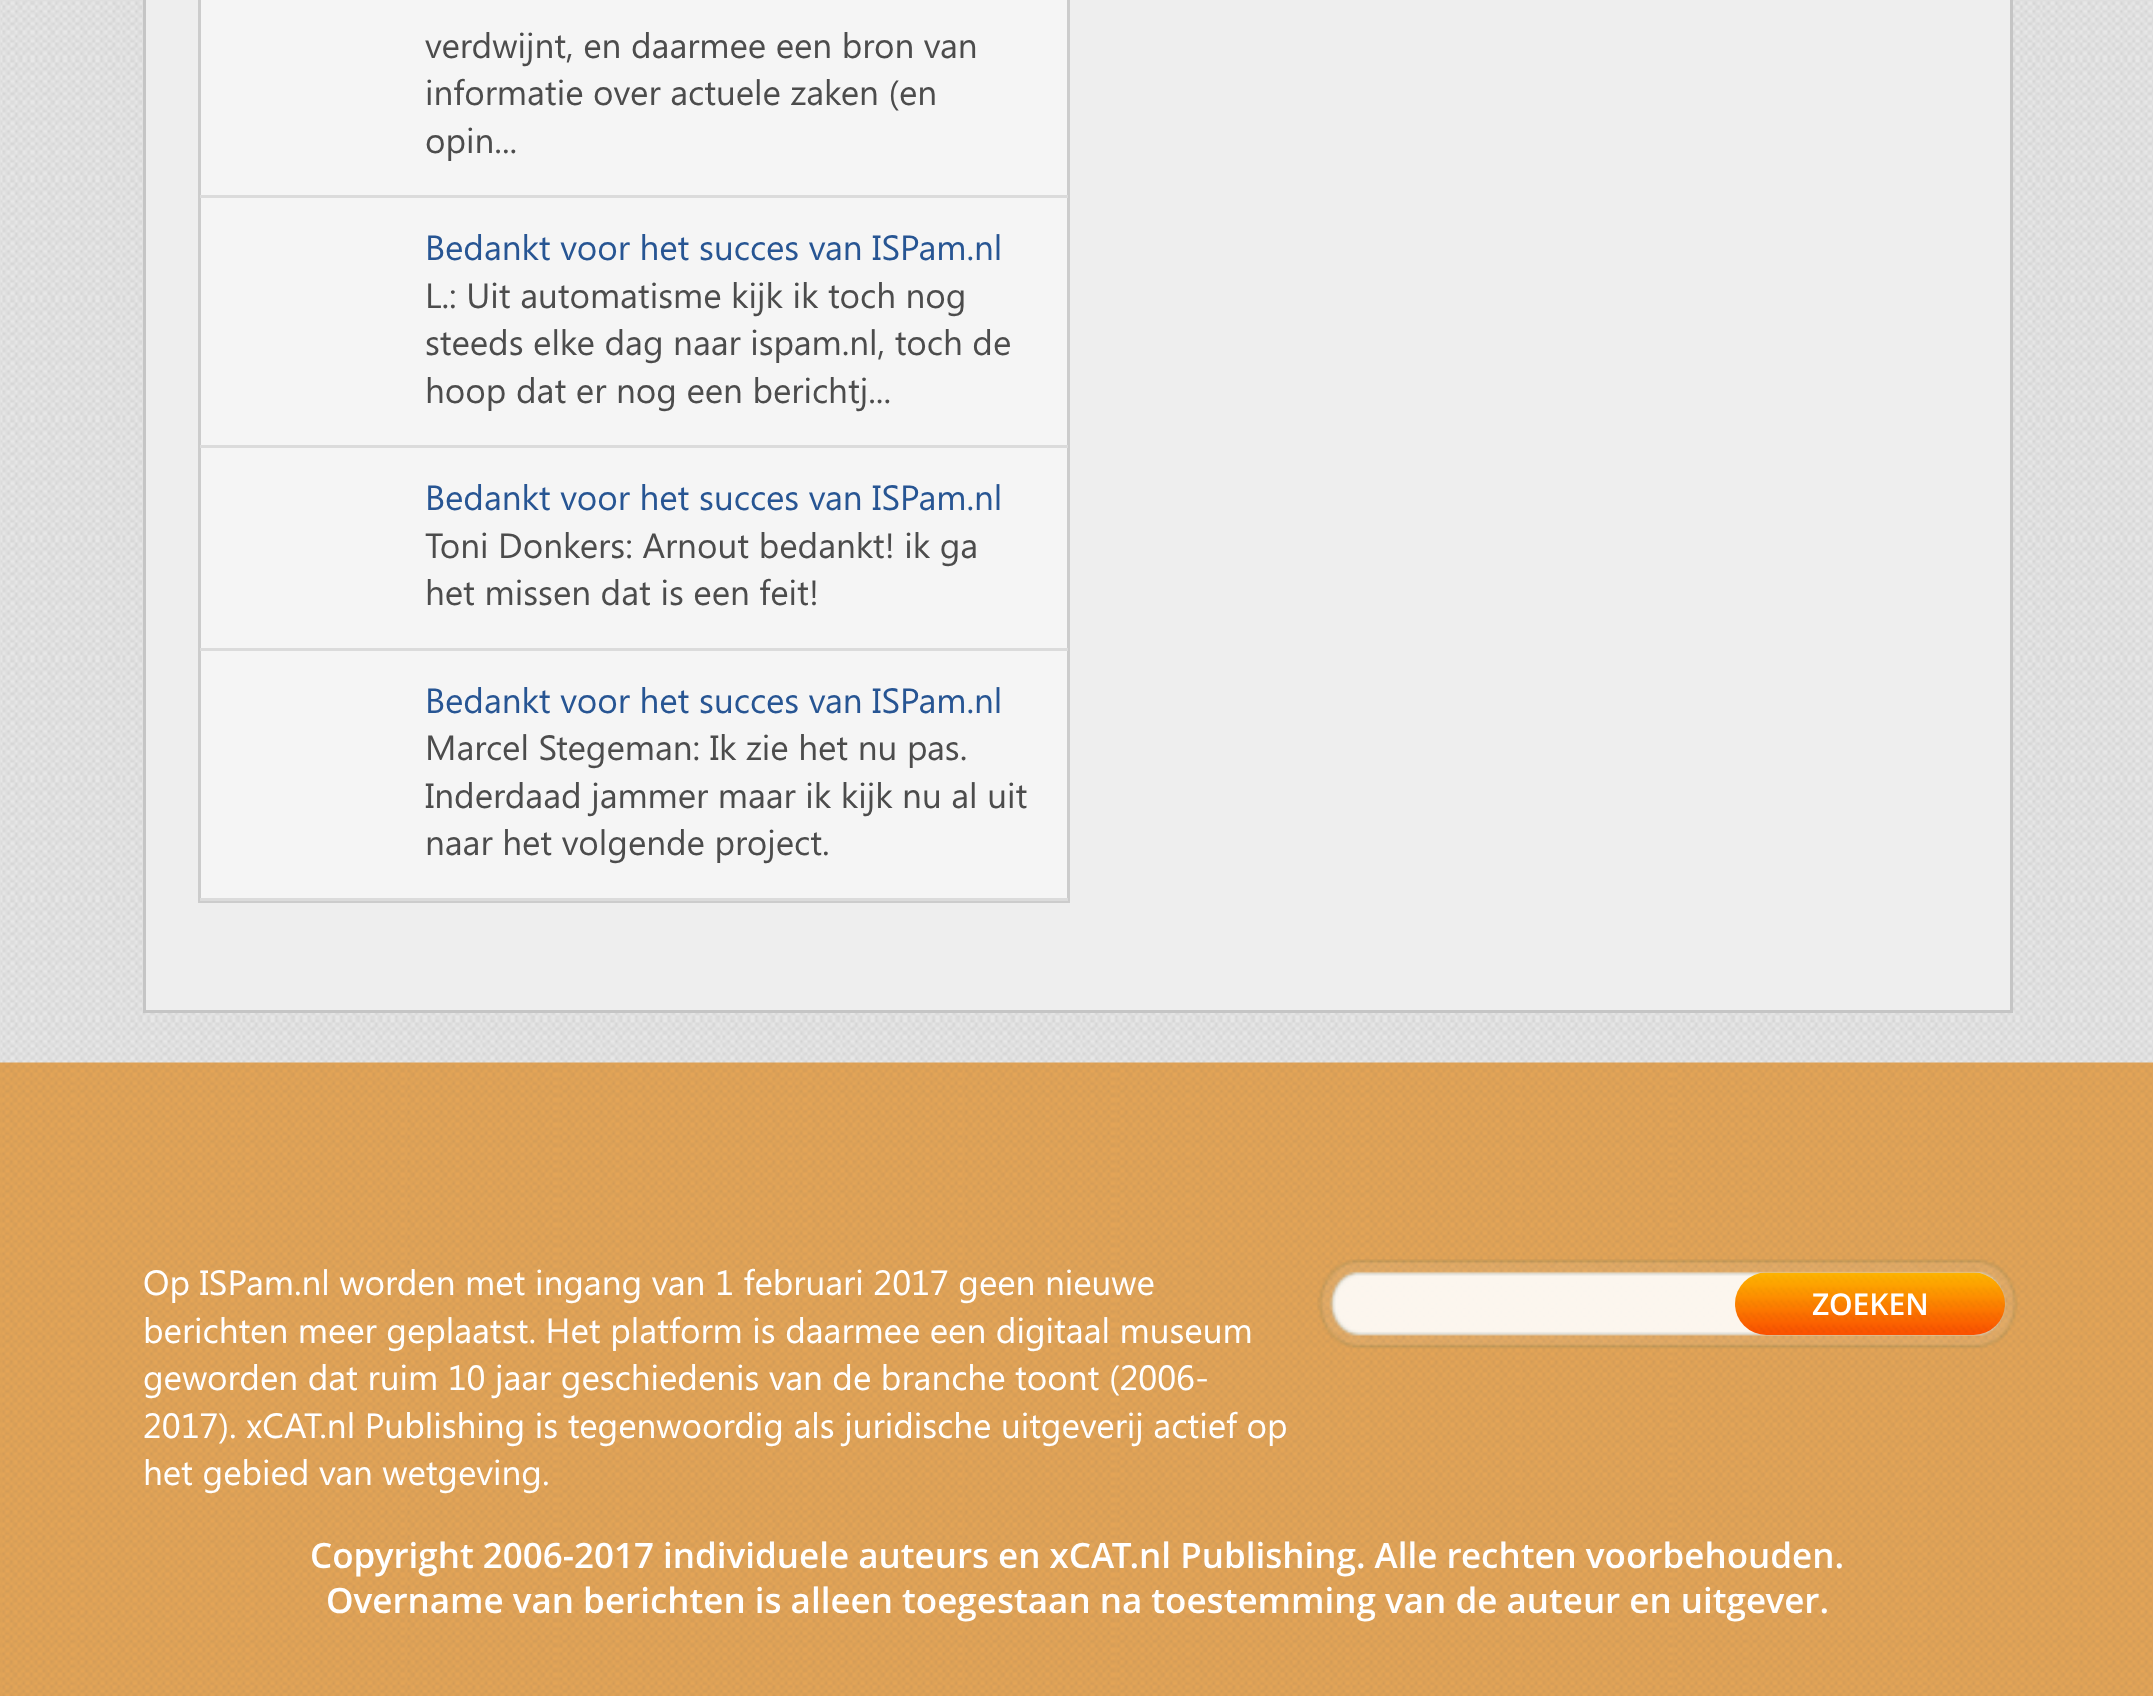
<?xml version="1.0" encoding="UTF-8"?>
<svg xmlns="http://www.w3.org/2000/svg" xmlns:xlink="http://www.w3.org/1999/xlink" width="2153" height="1696">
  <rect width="100%" height="100%" fill="#ffffff" />
  <image x="0" y="0" width="2153" height="1063" xlink:href="image1.png" />
  <rect x="144.5" y="-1.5" width="1867" height="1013" fill="#eeeeee" stroke="#c5c5c5" stroke-width="3" />
  <rect x="201" width="866" height="898" fill="#f5f5f5" />
  <rect x="199.5" y="-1.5" width="869" height="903" fill="none" stroke="#cccccc" stroke-width="3" />
  <rect x="200" y="195" width="868" height="3" fill="#dbdbdb" />
  <rect x="200" y="445" width="868" height="3" fill="#dbdbdb" />
  <rect x="200" y="648" width="868" height="3" fill="#dbdbdb" />
  <rect x="200" y="898" width="868" height="3" fill="#dbdbdb" />
  <image x="0" y="1062" width="2153" height="634" xlink:href="image2.png" />
  <image x="1317" y="1259" width="701" height="90" xlink:href="image3.png" />
  <image x="1735" y="1272" width="270" height="63" xlink:href="image4.png" />
  <text x="425" y="58" style="font-family: Segoe UI; font-size: 35px; fill: #4c4c4c">verdwijnt, en daarmee een bron van</text>
  <text x="425" y="105" style="font-family: Segoe UI; font-size: 35px; fill: #4c4c4c">informatie over actuele zaken (en</text>
  <text x="425" y="153" style="font-family: Segoe UI; font-size: 35px; fill: #4c4c4c">opin...</text>
  <text x="425" y="260" style="font-family: Segoe UI; font-size: 35px; fill: #275593">Bedankt voor het succes van ISPam.nl</text>
  <text x="425" y="308" style="font-family: Segoe UI; font-size: 35px; fill: #4c4c4c">L.: Uit automatisme kijk ik toch nog</text>
  <text x="425" y="355" style="font-family: Segoe UI; font-size: 35px; fill: #4c4c4c">steeds elke dag naar ispam.nl, toch de</text>
  <text x="425" y="403" style="font-family: Segoe UI; font-size: 35px; fill: #4c4c4c">hoop dat er nog een berichtj...</text>
  <text x="425" y="510" style="font-family: Segoe UI; font-size: 35px; fill: #275593">Bedankt voor het succes van ISPam.nl</text>
  <text x="425" y="558" style="font-family: Segoe UI; font-size: 35px; fill: #4c4c4c">Toni Donkers: Arnout bedankt! ik ga</text>
  <text x="425" y="605" style="font-family: Segoe UI; font-size: 35px; fill: #4c4c4c">het missen dat is een feit!</text>
  <text x="425" y="713" style="font-family: Segoe UI; font-size: 35px; fill: #275593">Bedankt voor het succes van ISPam.nl</text>
  <text x="425" y="760" style="font-family: Segoe UI; font-size: 35px; fill: #4c4c4c">Marcel Stegeman: Ik zie het nu pas.</text>
  <text x="425" y="808" style="font-family: Segoe UI; font-size: 35px; fill: #4c4c4c">Inderdaad jammer maar ik kijk nu al uit</text>
  <text x="425" y="855" style="font-family: Segoe UI; font-size: 35px; fill: #4c4c4c">naar het volgende project.</text>
  <text x="143" y="1295" style="font-family: Segoe UI; font-size: 35px; fill: #ffffff">Op ISPam.nl worden met ingang van 1 februari 2017 geen nieuwe</text>
  <text x="143" y="1343" style="font-family: Segoe UI; font-size: 35px; fill: #ffffff">berichten meer geplaatst. Het platform is daarmee een digitaal museum</text>
  <text x="143" y="1390" style="font-family: Segoe UI; font-size: 35px; fill: #ffffff">geworden dat ruim 10 jaar geschiedenis van de branche toont (2006-</text>
  <text x="143" y="1438" style="font-family: Segoe UI; font-size: 35px; fill: #ffffff">2017). xCAT.nl Publishing is tegenwoordig als juridische uitgeverij actief op</text>
  <text x="143" y="1485" style="font-family: Segoe UI; font-size: 35px; fill: #ffffff">het gebied van wetgeving.</text>
  <text x="1812" y="1315" style="font-family: Open Sans; font-size: 30px; font-weight: 600; fill: #ffffff">ZOEKEN</text>
  <text x="310" y="1568" style="font-family: Open Sans; font-size: 35px; font-weight: 600; fill: #ffffff">Copyright 2006-2017 individuele auteurs en xCAT.nl Publishing. Alle rechten voorbehouden.</text>
  <text x="326" y="1613" style="font-family: Open Sans; font-size: 35px; font-weight: 600; fill: #ffffff">Overname van berichten is alleen toegestaan na toestemming van de auteur en uitgever.</text>
</svg>
